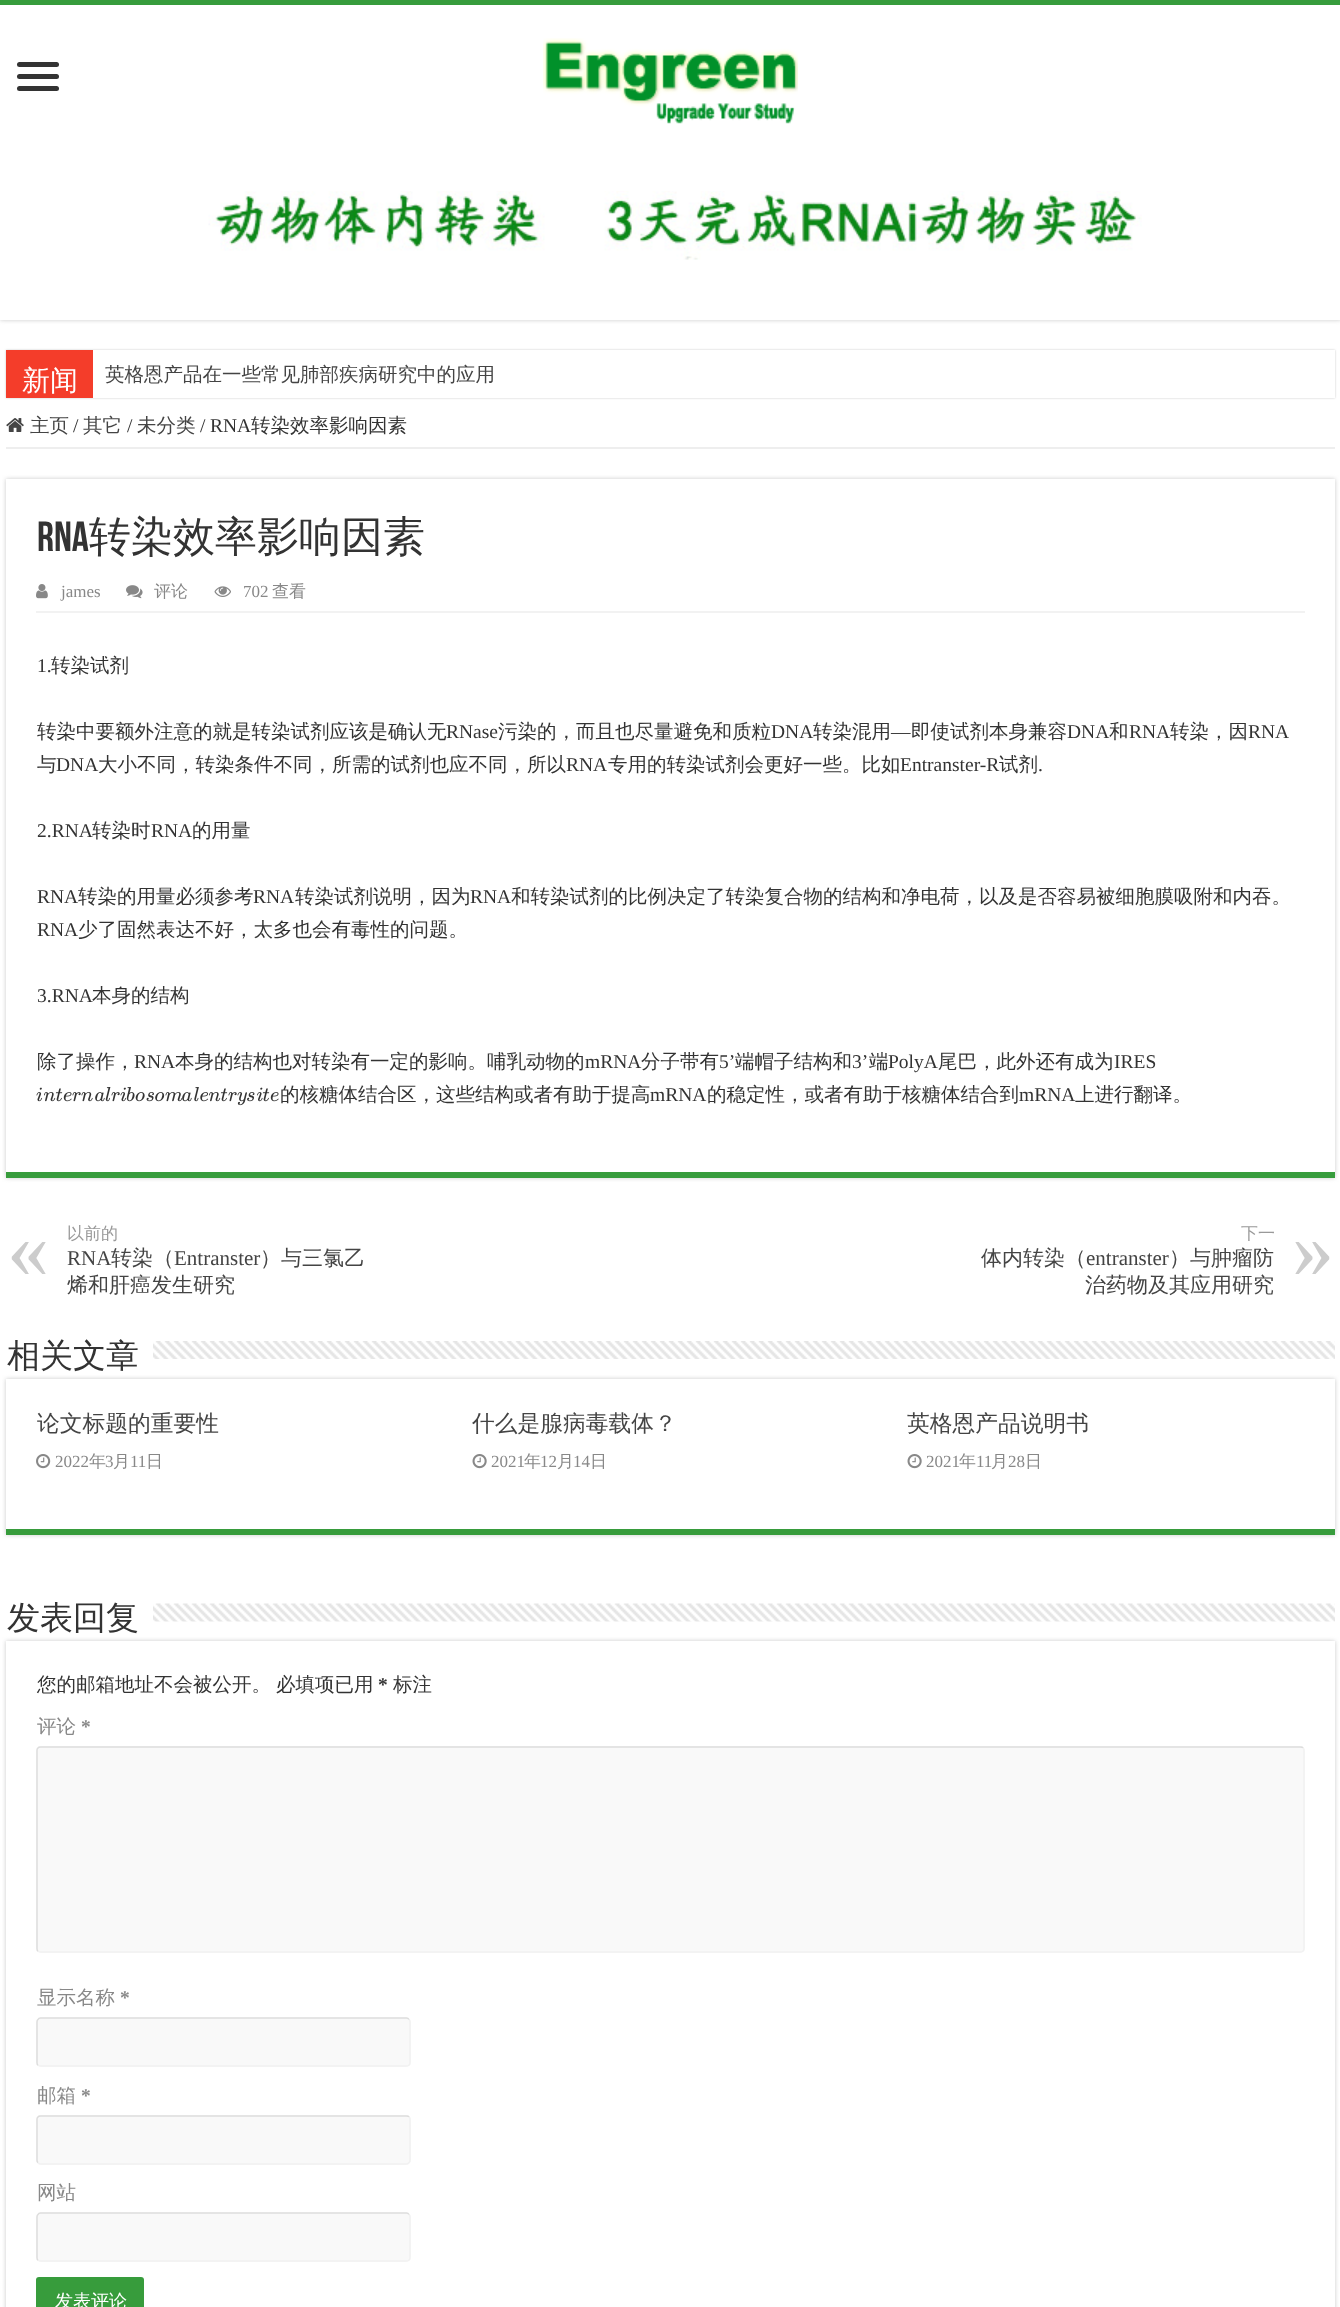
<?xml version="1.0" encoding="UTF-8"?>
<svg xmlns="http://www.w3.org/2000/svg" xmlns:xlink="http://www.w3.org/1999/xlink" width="1340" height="2307">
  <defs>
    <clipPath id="clip1"><path d="M 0 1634 h 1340 v 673 h -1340 z m 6 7 h 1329 v 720 h -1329 z" clip-rule="evenodd" /></clipPath>
  </defs>
  <rect width="100%" height="100%" fill="#ffffff" />
  <rect width="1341" height="320" fill="#cacaca" filter="blur(2px)" />
  <rect y="5" width="1340" height="315" fill="#ffffff" />
  <rect width="1340" height="5" fill="#379c3c" />
  <rect x="17" y="62" width="42" height="5" rx="2.5" fill="#333333" />
  <rect x="17" y="74" width="42" height="5" rx="2.5" fill="#333333" />
  <rect x="17" y="86" width="42" height="5" rx="2.5" fill="#333333" />
  <image x="543" y="38" width="255" height="86" xlink:href="image1.png" />
  <image x="208" y="191" width="934" height="69" xlink:href="image2.png" />
  <rect x="6" y="350" width="1329" height="48" fill="#cacaca" filter="blur(1px)" />
  <rect x="93" y="350" width="1242" height="48" fill="#ffffff" />
  <rect x="6" y="350" width="87" height="48" fill="#f43d2a" />
  <rect x="6" y="447" width="1329" height="2" fill="#eeeeee" />
  <image x="6" y="418" width="18" height="14" xlink:href="image3.png" />
  <rect x="6" y="479" width="1329" height="699" fill="#cacaca" filter="blur(2px)" />
  <rect x="6" y="479" width="1329" height="693" fill="#ffffff" />
  <rect x="6" y="1172" width="1329" height="6" fill="#379c3c" />
  <rect x="36" y="611" width="1269" height="2" fill="#f2f2f2" />
  <image x="36" y="584" width="12" height="15" xlink:href="image4.png" />
  <image x="126" y="585" width="17" height="14" xlink:href="image5.png" />
  <image x="214" y="586" width="17" height="11" xlink:href="image6.png" />
  <image x="36" y="1087" width="7" height="15" xlink:href="image7.png" />
  <image x="44" y="1092" width="12" height="10" xlink:href="image8.png" />
  <image x="55" y="1088" width="8" height="14" xlink:href="image9.png" />
  <image x="63" y="1092" width="9" height="10" xlink:href="image10.png" />
  <image x="72" y="1092" width="9" height="10" xlink:href="image11.png" />
  <image x="81" y="1092" width="12" height="10" xlink:href="image12.png" />
  <image x="95" y="1092" width="10" height="10" xlink:href="image13.png" />
  <image x="105" y="1087" width="6" height="15" xlink:href="image14.png" />
  <image x="111" y="1092" width="9" height="10" xlink:href="image11.png" />
  <image x="120" y="1087" width="7" height="15" xlink:href="image7.png" />
  <image x="126" y="1087" width="9" height="15" xlink:href="image15.png" />
  <image x="135" y="1092" width="10" height="10" xlink:href="image16.png" />
  <image x="146" y="1092" width="8" height="10" xlink:href="image17.png" />
  <image x="155" y="1092" width="10" height="10" xlink:href="image18.png" />
  <image x="165" y="1092" width="18" height="10" xlink:href="image19.png" />
  <image x="182" y="1092" width="10" height="10" xlink:href="image20.png" />
  <image x="194" y="1087" width="5" height="15" xlink:href="image21.png" />
  <image x="200" y="1092" width="9" height="10" xlink:href="image22.png" />
  <image x="209" y="1092" width="12" height="10" xlink:href="image8.png" />
  <image x="220" y="1088" width="8" height="14" xlink:href="image9.png" />
  <image x="228" y="1092" width="9" height="10" xlink:href="image11.png" />
  <image x="237" y="1092" width="10" height="14" xlink:href="image23.png" />
  <image x="247" y="1092" width="8" height="10" xlink:href="image24.png" />
  <image x="257" y="1087" width="6" height="15" xlink:href="image25.png" />
  <image x="262" y="1088" width="8" height="14" xlink:href="image26.png" />
  <image x="270" y="1092" width="9" height="10" xlink:href="image10.png" />
  <image x="153" y="1341" width="1182" height="18" xlink:href="image27.png" />
  <rect x="6" y="1379" width="1329" height="156" fill="#cacaca" filter="blur(2px)" />
  <rect x="6" y="1379" width="1329" height="150" fill="#ffffff" />
  <rect x="6" y="1529" width="1329" height="6" fill="#379c3c" />
  <image x="36" y="1454" width="15" height="15" xlink:href="image28.png" />
  <image x="472" y="1454" width="15" height="15" xlink:href="image29.png" />
  <image x="907" y="1454" width="15" height="15" xlink:href="image29.png" />
  <image x="153" y="1603" width="1182" height="19" xlink:href="image30.png" />
  <g clip-path="url(#clip1)">
    <rect x="6" y="1641" width="1329" height="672" fill="#cacaca" filter="blur(2px)" />
  </g>
  <rect x="36" y="1746" width="1269" height="207" rx="5" fill="#f9f9f9" />
  <path d="M 1303 1748 c 1 0.5 1 1.5 1 2.5 v 198 c 0 1 0 2 -1 2.5 c -0.5 1 -1.5 1 -2.5 1 h -1260 c -1 0 -2 0 -2.5 -1" fill="none" stroke="#f1f1f1" stroke-width="1.5" />
  <path d="M 38 1951 c -1 -0.5 -1 -1.5 -1 -2.5 v -198 c 0 -1 0 -2 1 -2.5 c 0.5 -1 1.5 -1 2.5 -1 h 1260 c 1 0 2 0 2.5 1" fill="none" stroke="#dddddd" stroke-width="1.5" />
  <rect x="36" y="2018" width="375" height="49" rx="5" fill="#f9f9f9" />
  <path d="M 409 2019.5 c 1 0.5 1 1.5 1 2.5 v 40.5 c 0 1 0 2 -1 2.5 c -0.5 1 -1.5 1 -2.5 1 h -366 c -1 0 -2 0 -2.5 -1" fill="none" stroke="#f1f1f1" stroke-width="1.5" />
  <path d="M 38 2065 c -1 -0.5 -1 -1.5 -1 -2.5 v -40.5 c 0 -1 0 -2 1 -2.5 c 0.5 -1 1.5 -1.5 2.5 -1.5 h 366 c 1 0 2 0.5 2.5 1.5" fill="none" stroke="#dddddd" stroke-width="1.5" />
  <rect x="36" y="2115" width="375" height="50" rx="5" fill="#f9f9f9" />
  <path d="M 409 2117 c 1 0.5 1 1.5 1 2.5 v 40.5 c 0 1 0 2 -1 2.5 c -0.5 1 -1.5 1.5 -2.5 1.5 h -366 c -1 0 -2 -0.5 -2.5 -1.5" fill="none" stroke="#f1f1f1" stroke-width="1.5" />
  <path d="M 38 2162.5 c -1 -0.5 -1 -1.5 -1 -2.5 v -40.5 c 0 -1 0 -2 1 -2.5 c 0.5 -1 1.5 -1 2.5 -1 h 366 c 1 0 2 0 2.5 1" fill="none" stroke="#dddddd" stroke-width="1.5" />
  <rect x="36" y="2213" width="375" height="49" rx="5" fill="#f9f9f9" />
  <path d="M 409 2214.5 c 1 0.5 1 1.5 1 2.5 v 40.5 c 0 1 0 2 -1 2.5 c -0.5 1 -1.5 1 -2.5 1 h -366 c -1 0 -2 0 -2.5 -1" fill="none" stroke="#f1f1f1" stroke-width="1.5" />
  <path d="M 38 2260 c -1 -0.5 -1 -1.5 -1 -2.5 v -40.5 c 0 -1 0 -2 1 -2.5 c 0.5 -1 1.5 -1.5 2.5 -1.5 h 366 c 1 0 2 0.5 2.5 1.5" fill="none" stroke="#dddddd" stroke-width="1.5" />
  <rect x="36" y="2277" width="108" height="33" rx="3" fill="#379c3c" />
  <text x="22" y="390" style="font-family: WenQuanYi Zen Hei; font-size: 28px; font-weight: 500; fill: #ffffff">新闻</text>
  <text x="105" y="381" style="font-family: WenQuanYi Zen Hei; font-size: 19.5px; font-weight: 500; fill: #444444">英格恩产品在一些常见肺部疾病研究中的应用</text>
  <text x="30" y="432" style="font-family: WenQuanYi Zen Hei; font-size: 19.5px; font-weight: 500; fill: #444444">主页</text>
  <text x="73" y="432" style="font-family: Liberation Serif; font-size: 19.5px; fill: #333333">/</text>
  <text x="83" y="432" style="font-family: WenQuanYi Zen Hei; font-size: 19.5px; font-weight: 500; fill: #444444">其它</text>
  <text x="127" y="432" style="font-family: Liberation Serif; font-size: 19.5px; fill: #333333">/</text>
  <text x="137" y="432" style="font-family: WenQuanYi Zen Hei; font-size: 19.5px; font-weight: 500; fill: #444444">未分类</text>
  <text x="200" y="432" style="font-family: Liberation Serif; font-size: 19.5px; fill: #333333">/</text>
  <text x="210" y="432" style="font-family: Liberation Serif; font-size: 19.5px; fill: #333333">RNA</text>
  <text x="251" y="432" style="font-family: WenQuanYi Zen Hei; font-size: 19.5px; font-weight: 500; fill: #333333">转染效率影响因素</text>
  <text x="37" y="551" style="font-family: Bebas Neue; font-size: 42px; font-weight: bold; fill: #333333">RNA</text>
  <text x="89" y="551" style="font-family: WenQuanYi Zen Hei; font-size: 42px; font-weight: 500; fill: #333333">转染效率影响因素</text>
  <text x="61" y="597" style="font-family: Liberation Serif; font-size: 17px; fill: #888888">james</text>
  <text x="154" y="597" style="font-family: WenQuanYi Zen Hei; font-size: 17px; font-weight: 500; fill: #888888">评论</text>
  <text x="243" y="597" style="font-family: Liberation Serif; font-size: 17px; fill: #888888">702</text>
  <text x="272" y="597" style="font-family: WenQuanYi Zen Hei; font-size: 17px; font-weight: 500; fill: #888888">查看</text>
  <text x="37" y="672" style="font-family: Liberation Serif; font-size: 19.5px; fill: #333333">1.</text>
  <text x="51" y="672" style="font-family: WenQuanYi Zen Hei; font-size: 19.5px; font-weight: 500; fill: #333333">转染试剂</text>
  <text x="37" y="738" style="font-family: WenQuanYi Zen Hei; font-size: 19.5px; font-weight: 500; fill: #333333">转染中要额外注意的就是转染试剂应该是确认无</text>
  <text x="446" y="738" style="font-family: Liberation Serif; font-size: 19.5px; fill: #333333">RNase</text>
  <text x="498" y="738" style="font-family: WenQuanYi Zen Hei; font-size: 19.5px; font-weight: 500; fill: #333333">污染的，而且也尽量避免和质粒</text>
  <text x="771" y="738" style="font-family: Liberation Serif; font-size: 19.5px; fill: #333333">DNA</text>
  <text x="813" y="738" style="font-family: WenQuanYi Zen Hei; font-size: 19.5px; font-weight: 500; fill: #333333">转染混用</text>
  <text x="891" y="738" style="font-family: Liberation Serif; font-size: 19.5px; fill: #333333">—</text>
  <text x="911" y="738" style="font-family: WenQuanYi Zen Hei; font-size: 19.5px; font-weight: 500; fill: #333333">即使试剂本身兼容</text>
  <text x="1067" y="738" style="font-family: Liberation Serif; font-size: 19.5px; fill: #333333">DNA</text>
  <text x="1109" y="738" style="font-family: WenQuanYi Zen Hei; font-size: 19.5px; font-weight: 500; fill: #333333">和</text>
  <text x="1129" y="738" style="font-family: Liberation Serif; font-size: 19.5px; fill: #333333">RNA</text>
  <text x="1170" y="738" style="font-family: WenQuanYi Zen Hei; font-size: 19.5px; font-weight: 500; fill: #333333">转染，因</text>
  <text x="1248" y="738" style="font-family: Liberation Serif; font-size: 19.5px; fill: #333333">RNA</text>
  <text x="37" y="771" style="font-family: WenQuanYi Zen Hei; font-size: 19.5px; font-weight: 500; fill: #333333">与</text>
  <text x="56" y="771" style="font-family: Liberation Serif; font-size: 19.5px; fill: #333333">DNA</text>
  <text x="98" y="771" style="font-family: WenQuanYi Zen Hei; font-size: 19.5px; font-weight: 500; fill: #333333">大小不同，转染条件不同，所需的试剂也应不同，所以</text>
  <text x="566" y="771" style="font-family: Liberation Serif; font-size: 19.5px; fill: #333333">RNA</text>
  <text x="608" y="771" style="font-family: WenQuanYi Zen Hei; font-size: 19.5px; font-weight: 500; fill: #333333">专用的转染试剂会更好一些。比如</text>
  <text x="900" y="771" style="font-family: Liberation Serif; font-size: 19.5px; fill: #333333">Entranster-R</text>
  <text x="999" y="771" style="font-family: WenQuanYi Zen Hei; font-size: 19.5px; font-weight: 500; fill: #333333">试剂</text>
  <text x="1038" y="771" style="font-family: Liberation Serif; font-size: 19.5px; fill: #333333">.</text>
  <text x="37" y="837" style="font-family: Liberation Serif; font-size: 19.5px; fill: #333333">2.RNA</text>
  <text x="92" y="837" style="font-family: WenQuanYi Zen Hei; font-size: 19.5px; font-weight: 500; fill: #333333">转染时</text>
  <text x="151" y="837" style="font-family: Liberation Serif; font-size: 19.5px; fill: #333333">RNA</text>
  <text x="192" y="837" style="font-family: WenQuanYi Zen Hei; font-size: 19.5px; font-weight: 500; fill: #333333">的用量</text>
  <text x="37" y="903" style="font-family: Liberation Serif; font-size: 19.5px; fill: #333333">RNA</text>
  <text x="78" y="903" style="font-family: WenQuanYi Zen Hei; font-size: 19.5px; font-weight: 500; fill: #333333">转染的用量必须参考</text>
  <text x="253" y="903" style="font-family: Liberation Serif; font-size: 19.5px; fill: #333333">RNA</text>
  <text x="295" y="903" style="font-family: WenQuanYi Zen Hei; font-size: 19.5px; font-weight: 500; fill: #333333">转染试剂说明，因为</text>
  <text x="470" y="903" style="font-family: Liberation Serif; font-size: 19.5px; fill: #333333">RNA</text>
  <text x="511" y="903" style="font-family: WenQuanYi Zen Hei; font-size: 19.5px; font-weight: 500; fill: #333333">和转染试剂的比例决定了转染复合物的结构和净电荷，以及是否容易被细胞膜吸附和内吞。</text>
  <text x="37" y="936" style="font-family: Liberation Serif; font-size: 19.5px; fill: #333333">RNA</text>
  <text x="78" y="936" style="font-family: WenQuanYi Zen Hei; font-size: 19.5px; font-weight: 500; fill: #333333">少了固然表达不好，太多也会有毒性的问题。</text>
  <text x="37" y="1002" style="font-family: Liberation Serif; font-size: 19.5px; fill: #333333">3.RNA</text>
  <text x="92" y="1002" style="font-family: WenQuanYi Zen Hei; font-size: 19.5px; font-weight: 500; fill: #333333">本身的结构</text>
  <text x="37" y="1068" style="font-family: WenQuanYi Zen Hei; font-size: 19.5px; font-weight: 500; fill: #333333">除了操作，</text>
  <text x="134" y="1068" style="font-family: Liberation Serif; font-size: 19.5px; fill: #333333">RNA</text>
  <text x="175" y="1068" style="font-family: WenQuanYi Zen Hei; font-size: 19.5px; font-weight: 500; fill: #333333">本身的结构也对转染有一定的影响。哺乳动物的</text>
  <text x="585" y="1068" style="font-family: Liberation Serif; font-size: 19.5px; fill: #333333">mRNA</text>
  <text x="641" y="1068" style="font-family: WenQuanYi Zen Hei; font-size: 19.5px; font-weight: 500; fill: #333333">分子带有</text>
  <text x="719" y="1068" style="font-family: Liberation Serif; font-size: 19.5px; fill: #333333">5’</text>
  <text x="735" y="1068" style="font-family: WenQuanYi Zen Hei; font-size: 19.5px; font-weight: 500; fill: #333333">端帽子结构和</text>
  <text x="852" y="1068" style="font-family: Liberation Serif; font-size: 19.5px; fill: #333333">3’</text>
  <text x="869" y="1068" style="font-family: WenQuanYi Zen Hei; font-size: 19.5px; font-weight: 500; fill: #333333">端</text>
  <text x="888" y="1068" style="font-family: Liberation Serif; font-size: 19.5px; fill: #333333">PolyA</text>
  <text x="938" y="1068" style="font-family: WenQuanYi Zen Hei; font-size: 19.5px; font-weight: 500; fill: #333333">尾巴，此外还有成为</text>
  <text x="1114" y="1068" style="font-family: Liberation Serif; font-size: 19.5px; fill: #333333">IRES</text>
  <text x="280" y="1101" style="font-family: WenQuanYi Zen Hei; font-size: 19.5px; font-weight: 500; fill: #333333">的核糖体结合区，这些结构或者有助于提高</text>
  <text x="650" y="1101" style="font-family: Liberation Serif; font-size: 19.5px; fill: #333333">mRNA</text>
  <text x="707" y="1101" style="font-family: WenQuanYi Zen Hei; font-size: 19.5px; font-weight: 500; fill: #333333">的稳定性，或者有助于核糖体结合到</text>
  <text x="1019" y="1101" style="font-family: Liberation Serif; font-size: 19.5px; fill: #333333">mRNA</text>
  <text x="1075" y="1101" style="font-family: WenQuanYi Zen Hei; font-size: 19.5px; font-weight: 500; fill: #333333">上进行翻译。</text>
  <text x="67" y="1239" style="font-family: WenQuanYi Zen Hei; font-size: 17px; font-weight: 500; fill: #999999">以前的</text>
  <text x="7" y="1277" style="font-family: Liberation Serif; font-size: 84px; fill: #cccccc">«</text>
  <text x="67" y="1265" style="font-family: Liberation Serif; font-size: 21px; fill: #444444">RNA</text>
  <text x="111" y="1265" style="font-family: WenQuanYi Zen Hei; font-size: 21px; font-weight: 500; fill: #444444">转染（</text>
  <text x="174" y="1265" style="font-family: Liberation Serif; font-size: 21px; fill: #444444">Entranster</text>
  <text x="260" y="1265" style="font-family: WenQuanYi Zen Hei; font-size: 21px; font-weight: 500; fill: #444444">）与三氯乙</text>
  <text x="67" y="1292" style="font-family: WenQuanYi Zen Hei; font-size: 21px; font-weight: 500; fill: #444444">烯和肝癌发生研究</text>
  <text x="1241" y="1239" style="font-family: WenQuanYi Zen Hei; font-size: 17px; font-weight: 500; fill: #999999">下一</text>
  <text x="981" y="1265" style="font-family: WenQuanYi Zen Hei; font-size: 21px; font-weight: 500; fill: #444444">体内转染（</text>
  <text x="1086" y="1265" style="font-family: Liberation Serif; font-size: 21px; fill: #444444">entranster</text>
  <text x="1169" y="1265" style="font-family: WenQuanYi Zen Hei; font-size: 21px; font-weight: 500; fill: #444444">）与肿瘤防</text>
  <text x="1292" y="1277" style="font-family: Liberation Serif; font-size: 84px; fill: #cccccc">»</text>
  <text x="1085" y="1292" style="font-family: WenQuanYi Zen Hei; font-size: 21px; font-weight: 500; fill: #444444">治药物及其应用研究</text>
  <text x="7" y="1367" style="font-family: WenQuanYi Zen Hei; font-size: 33px; font-weight: 500; fill: #333333">相关文章</text>
  <text x="37" y="1431" style="font-family: WenQuanYi Zen Hei; font-size: 22.75px; font-weight: 500; fill: #444444">论文标题的重要性</text>
  <text x="55" y="1467" style="font-family: Liberation Serif; font-size: 17px; fill: #888888">2022</text>
  <text x="89" y="1467" style="font-family: WenQuanYi Zen Hei; font-size: 17px; font-weight: 500; fill: #888888">年</text>
  <text x="105" y="1467" style="font-family: Liberation Serif; font-size: 17px; fill: #888888">3</text>
  <text x="113" y="1467" style="font-family: WenQuanYi Zen Hei; font-size: 17px; font-weight: 500; fill: #888888">月</text>
  <text x="130" y="1467" style="font-family: Liberation Serif; font-size: 17px; fill: #888888">11</text>
  <text x="146" y="1467" style="font-family: WenQuanYi Zen Hei; font-size: 17px; font-weight: 500; fill: #888888">日</text>
  <text x="472" y="1431" style="font-family: WenQuanYi Zen Hei; font-size: 22.75px; font-weight: 500; fill: #444444">什么是腺病毒载体？</text>
  <text x="491" y="1467" style="font-family: Liberation Serif; font-size: 17px; fill: #888888">2021</text>
  <text x="524" y="1467" style="font-family: WenQuanYi Zen Hei; font-size: 17px; font-weight: 500; fill: #888888">年</text>
  <text x="540" y="1467" style="font-family: Liberation Serif; font-size: 17px; fill: #888888">12</text>
  <text x="557" y="1467" style="font-family: WenQuanYi Zen Hei; font-size: 17px; font-weight: 500; fill: #888888">月</text>
  <text x="573" y="1467" style="font-family: Liberation Serif; font-size: 17px; fill: #888888">14</text>
  <text x="590" y="1467" style="font-family: WenQuanYi Zen Hei; font-size: 17px; font-weight: 500; fill: #888888">日</text>
  <text x="907" y="1431" style="font-family: WenQuanYi Zen Hei; font-size: 22.75px; font-weight: 500; fill: #444444">英格恩产品说明书</text>
  <text x="926" y="1467" style="font-family: Liberation Serif; font-size: 17px; fill: #888888">2021</text>
  <text x="959" y="1467" style="font-family: WenQuanYi Zen Hei; font-size: 17px; font-weight: 500; fill: #888888">年</text>
  <text x="976" y="1467" style="font-family: Liberation Serif; font-size: 17px; fill: #888888">11</text>
  <text x="991" y="1467" style="font-family: WenQuanYi Zen Hei; font-size: 17px; font-weight: 500; fill: #888888">月</text>
  <text x="1008" y="1467" style="font-family: Liberation Serif; font-size: 17px; fill: #888888">28</text>
  <text x="1025" y="1467" style="font-family: WenQuanYi Zen Hei; font-size: 17px; font-weight: 500; fill: #888888">日</text>
  <text x="7" y="1629" style="font-family: WenQuanYi Zen Hei; font-size: 33px; font-weight: 500; fill: #333333">发表回复</text>
  <text x="37" y="1691" style="font-family: WenQuanYi Zen Hei; font-size: 19.5px; font-weight: 500; fill: #333333">您的邮箱地址不会被公开。</text>
  <text x="276" y="1691" style="font-family: WenQuanYi Zen Hei; font-size: 19.5px; font-weight: 500; fill: #333333">必填项已用</text>
  <text x="378" y="1691" style="font-family: Liberation Serif; font-size: 19.5px; font-weight: bold; fill: #333333">*</text>
  <text x="393" y="1691" style="font-family: WenQuanYi Zen Hei; font-size: 19.5px; font-weight: 500; fill: #333333">标注</text>
  <text x="37" y="1733" style="font-family: WenQuanYi Zen Hei; font-size: 19.5px; font-weight: 500; fill: #888888">评论</text>
  <text x="81" y="1733" style="font-family: Liberation Serif; font-size: 19.5px; font-weight: bold; fill: #888888">*</text>
  <text x="37" y="2004" style="font-family: WenQuanYi Zen Hei; font-size: 19.5px; font-weight: 500; fill: #888888">显示名称</text>
  <text x="120" y="2004" style="font-family: Liberation Serif; font-size: 19.5px; font-weight: bold; fill: #888888">*</text>
  <text x="37" y="2102" style="font-family: WenQuanYi Zen Hei; font-size: 19.5px; font-weight: 500; fill: #888888">邮箱</text>
  <text x="81" y="2102" style="font-family: Liberation Serif; font-size: 19.5px; font-weight: bold; fill: #888888">*</text>
  <text x="37" y="2199" style="font-family: WenQuanYi Zen Hei; font-size: 19.5px; font-weight: 500; fill: #888888">网站</text>
  <text x="55" y="2307" style="font-family: WenQuanYi Zen Hei; font-size: 18px; font-weight: 500; fill: #ffffff">发表评论</text>
</svg>
